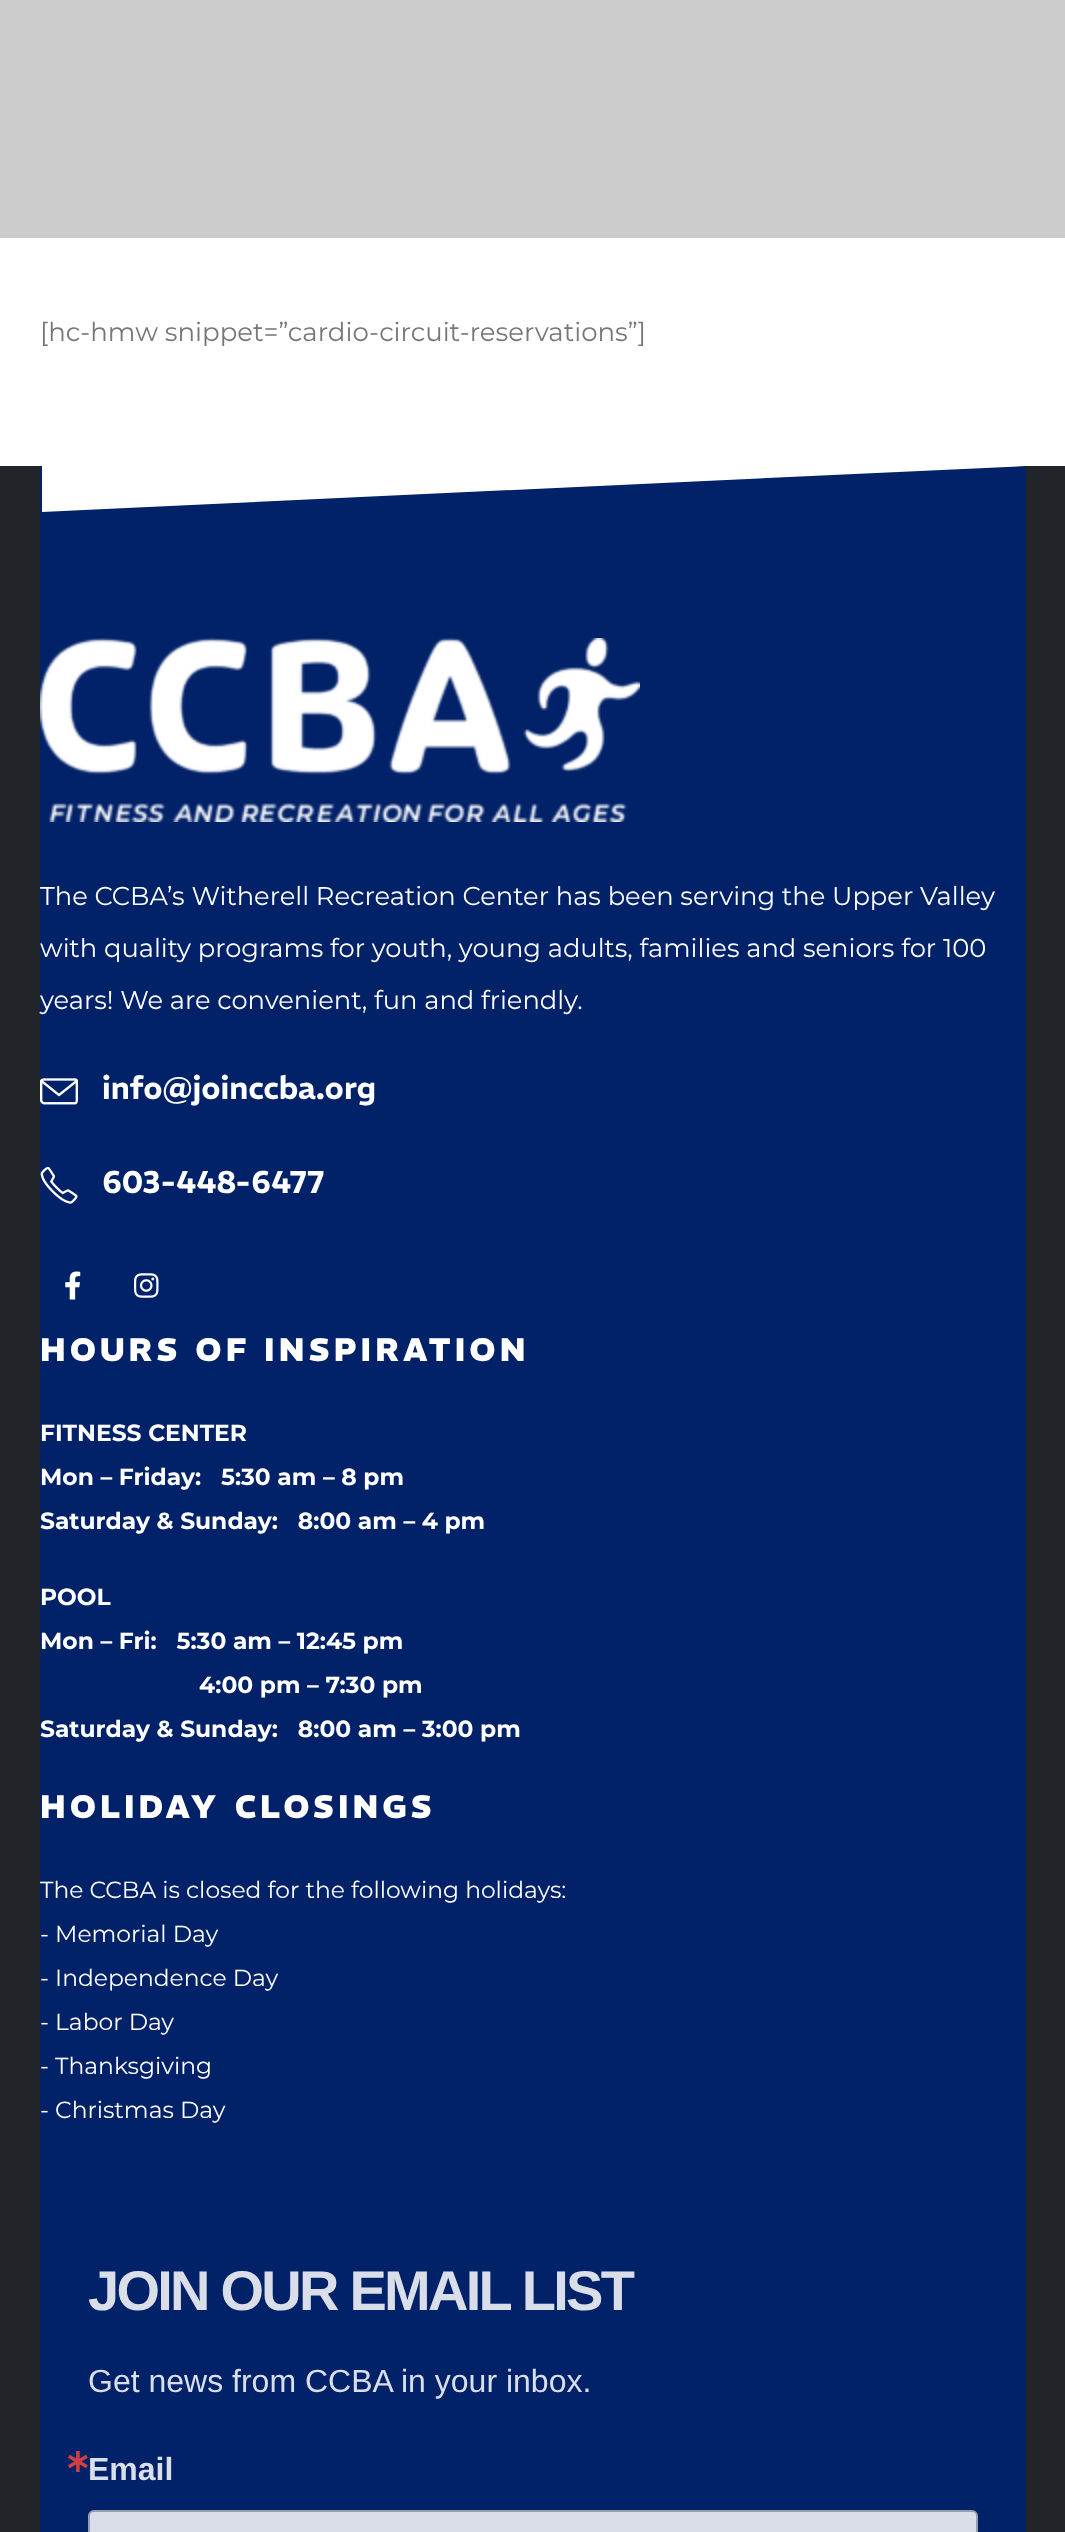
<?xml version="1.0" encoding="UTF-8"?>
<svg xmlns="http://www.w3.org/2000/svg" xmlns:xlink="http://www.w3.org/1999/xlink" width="1065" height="2532">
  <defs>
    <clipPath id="clip1"><rect x="42" y="466" width="984" height="46" /></clipPath>
  </defs>
  <rect width="100%" height="100%" fill="#ffffff" />
  <rect width="1065" height="238" fill="#cccccc" />
  <rect y="466" width="1065" height="2066" fill="#212529" />
  <rect x="40" y="466" width="986" height="2066" fill="#012169" />
  <g clip-path="url(#clip1)">
    <path d="M 41 512 v -46 h 986 z" fill="#ffffff" />
  </g>
  <image x="40" y="638" width="600" height="184" xlink:href="image1.png" />
  <image x="40" y="1078" width="38" height="27" xlink:href="image2.png" />
  <image x="40" y="1166" width="38" height="38" xlink:href="image3.png" />
  <image x="65" y="1271" width="16" height="29" xlink:href="image4.png" />
  <image x="134" y="1273" width="25" height="25" xlink:href="image5.png" />
  <rect x="89" y="2511" width="888" height="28" rx="5" fill="#d9dee9" stroke="#96a0af" stroke-width="2" />
  <text x="40" y="341" style="font-family: Montserrat; font-size: 26px; fill: #777777">[hc-hmw snippet=”cardio-circuit-reservations”]</text>
  <text x="40" y="905" style="font-family: Montserrat; font-size: 25.75px; fill: #ffffff">The CCBA’s Witherell Recreation Center has been serving the Upper Valley</text>
  <text x="40" y="957" style="font-family: Montserrat; font-size: 25.75px; fill: #ffffff">with quality programs for youth, young adults, families and seniors for 100</text>
  <text x="40" y="1009" style="font-family: Montserrat; font-size: 25.75px; fill: #ffffff">years! We are convenient, fun and friendly.</text>
  <text x="102" y="1099" style="font-family: REM; font-size: 31.5px; font-weight: 600; fill: #ffffff">info@joinccba.org</text>
  <text x="102" y="1193" style="font-family: REM; font-size: 31.5px; font-weight: 600; fill: #ffffff">603-448-6477</text>
  <text x="40" y="1361" style="font-family: REM; font-size: 32.5px; font-weight: 800; letter-spacing: 4px; fill: #ffffff">HOURS OF INSPIRATION</text>
  <text x="40" y="1441" style="font-family: Montserrat; font-size: 23.4px; font-weight: bold; fill: #ffffff">FITNESS CENTER</text>
  <text x="40" y="1485" style="font-family: Montserrat; font-size: 23.4px; font-weight: bold; fill: #ffffff" xml:space="preserve">Mon – Friday:   5:30 am – 8 pm</text>
  <text x="40" y="1529" style="font-family: Montserrat; font-size: 23.4px; font-weight: bold; fill: #ffffff" xml:space="preserve">Saturday &amp; Sunday:   8:00 am – 4 pm</text>
  <text x="40" y="1605" style="font-family: Montserrat; font-size: 23.4px; font-weight: bold; fill: #ffffff">POOL</text>
  <text x="40" y="1649" style="font-family: Montserrat; font-size: 23.4px; font-weight: bold; fill: #ffffff" xml:space="preserve">Mon – Fri:   5:30 am – 12:45 pm</text>
  <text x="199" y="1693" style="font-family: Montserrat; font-size: 23.4px; font-weight: bold; fill: #ffffff">4:00 pm – 7:30 pm</text>
  <text x="40" y="1737" style="font-family: Montserrat; font-size: 23.4px; font-weight: bold; fill: #ffffff" xml:space="preserve">Saturday &amp; Sunday:   8:00 am – 3:00 pm</text>
  <text x="40" y="1818" style="font-family: REM; font-size: 32.5px; font-weight: 800; letter-spacing: 4px; fill: #ffffff">HOLIDAY CLOSINGS</text>
  <text x="40" y="1898" style="font-family: Montserrat; font-size: 23.4px; fill: #ffffff">The CCBA is closed for the following holidays:</text>
  <text x="40" y="1942" style="font-family: Montserrat; font-size: 23.4px; fill: #ffffff">- Memorial Day</text>
  <text x="40" y="1986" style="font-family: Montserrat; font-size: 23.4px; fill: #ffffff">- Independence Day</text>
  <text x="40" y="2030" style="font-family: Montserrat; font-size: 23.4px; fill: #ffffff">- Labor Day</text>
  <text x="40" y="2074" style="font-family: Montserrat; font-size: 23.4px; fill: #ffffff">- Thanksgiving</text>
  <text x="40" y="2118" style="font-family: Montserrat; font-size: 23.4px; fill: #ffffff">- Christmas Day</text>
  <text x="88" y="2310" style="font-family: Liberation Sans; font-size: 56px; font-weight: bold; letter-spacing: -2.75px; fill: #d9dee9">JOIN OUR EMAIL LIST</text>
  <text x="88" y="2392" style="font-family: Liberation Sans; font-size: 32px; fill: #d9dee9">Get news from CCBA in your inbox.</text>
  <text x="64" y="2472" style="font-family: DejaVu Sans; font-size: 32px; font-weight: bold; fill: #d04042">∗</text>
  <text x="88" y="2480" style="font-family: Liberation Sans; font-size: 32px; font-weight: bold; fill: #d9dee9">Email</text>
</svg>
